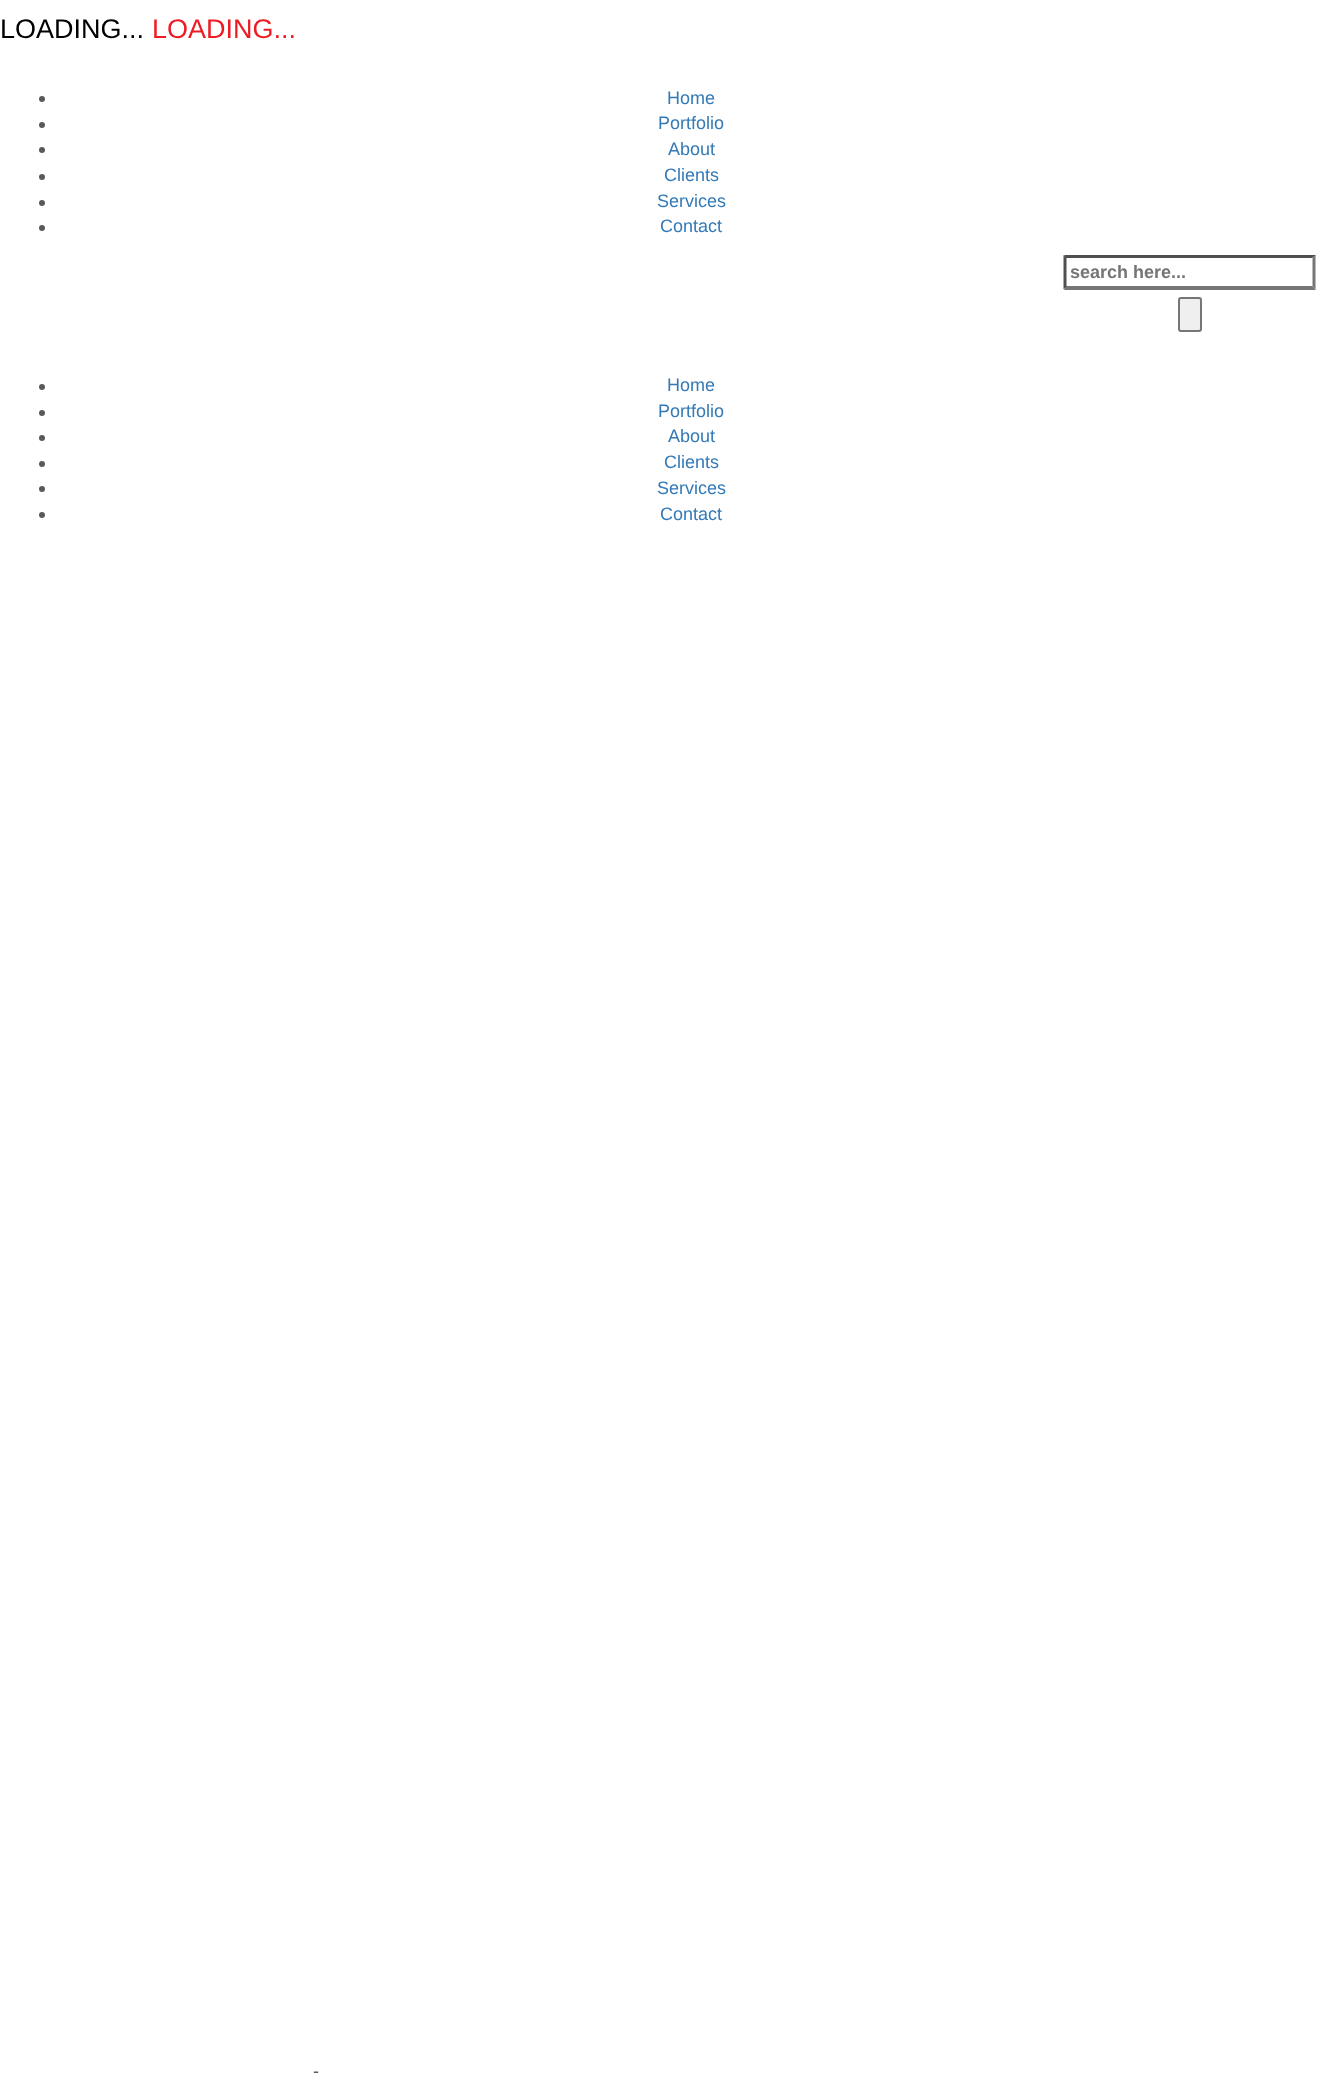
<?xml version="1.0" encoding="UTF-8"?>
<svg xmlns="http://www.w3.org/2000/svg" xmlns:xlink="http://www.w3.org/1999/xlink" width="1322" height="2073">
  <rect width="100%" height="100%" fill="#ffffff" />
  <circle cx="42" cy="99" r="3" fill="#595959" />
  <circle cx="42" cy="125" r="3" fill="#595959" />
  <circle cx="42" cy="150" r="3" fill="#595959" />
  <circle cx="42" cy="177" r="3" fill="#595959" />
  <circle cx="42" cy="203" r="3" fill="#595959" />
  <circle cx="42" cy="228" r="3" fill="#595959" />
  <path d="M 1064 255 h 252 l -4 3 h -246 z" fill="#4f4f4f" />
  <path d="M 1315.5 255 v 34.5 l -3 -3 v -28.5 z" fill="#767676" />
  <path d="M 1316 290 h -252 l 2 -4 h 246 z" fill="#767676" />
  <path d="M 1063.5 289.5 v -34.5 l 3 3 v 28.5 z" fill="#4f4f4f" />
  <rect x="1179" y="298" width="22" height="33" rx="2" fill="#efefef" stroke="#767676" stroke-width="2" />
  <circle cx="42" cy="387" r="3" fill="#595959" />
  <circle cx="42" cy="413" r="3" fill="#595959" />
  <circle cx="42" cy="438" r="3" fill="#595959" />
  <circle cx="42" cy="464" r="3" fill="#595959" />
  <circle cx="42" cy="489" r="3" fill="#595959" />
  <circle cx="42" cy="515" r="3" fill="#595959" />
  <text x="0" y="38" style="font-family: Liberation Sans; font-size: 27px; fill: #000000">LOADING...</text>
  <text x="152" y="38" style="font-family: Liberation Sans; font-size: 27px; fill: #ed1c24">LOADING...</text>
  <text x="667" y="104" style="font-family: Liberation Sans; font-size: 18px; fill: #337ab7">Home</text>
  <text x="658" y="129" style="font-family: Liberation Sans; font-size: 18px; fill: #337ab7">Portfolio</text>
  <text x="668" y="155" style="font-family: Liberation Sans; font-size: 18px; fill: #337ab7">About</text>
  <text x="664" y="181" style="font-family: Liberation Sans; font-size: 18px; fill: #337ab7">Clients</text>
  <text x="657" y="207" style="font-family: Liberation Sans; font-size: 18px; fill: #337ab7">Services</text>
  <text x="660" y="232" style="font-family: Liberation Sans; font-size: 18px; fill: #337ab7">Contact</text>
  <text x="1070" y="278" style="font-family: Liberation Sans; font-size: 18px; font-weight: bold; fill: #757575">search here...</text>
  <text x="667" y="391" style="font-family: Liberation Sans; font-size: 18px; fill: #337ab7">Home</text>
  <text x="658" y="417" style="font-family: Liberation Sans; font-size: 18px; fill: #337ab7">Portfolio</text>
  <text x="668" y="442" style="font-family: Liberation Sans; font-size: 18px; fill: #337ab7">About</text>
  <text x="664" y="468" style="font-family: Liberation Sans; font-size: 18px; fill: #337ab7">Clients</text>
  <text x="657" y="494" style="font-family: Liberation Sans; font-size: 18px; fill: #337ab7">Services</text>
  <text x="660" y="520" style="font-family: Liberation Sans; font-size: 18px; fill: #337ab7">Contact</text>
  <text x="313" y="2077" style="font-family: Liberation Sans; font-size: 18px; fill: #545454">-</text>
</svg>
